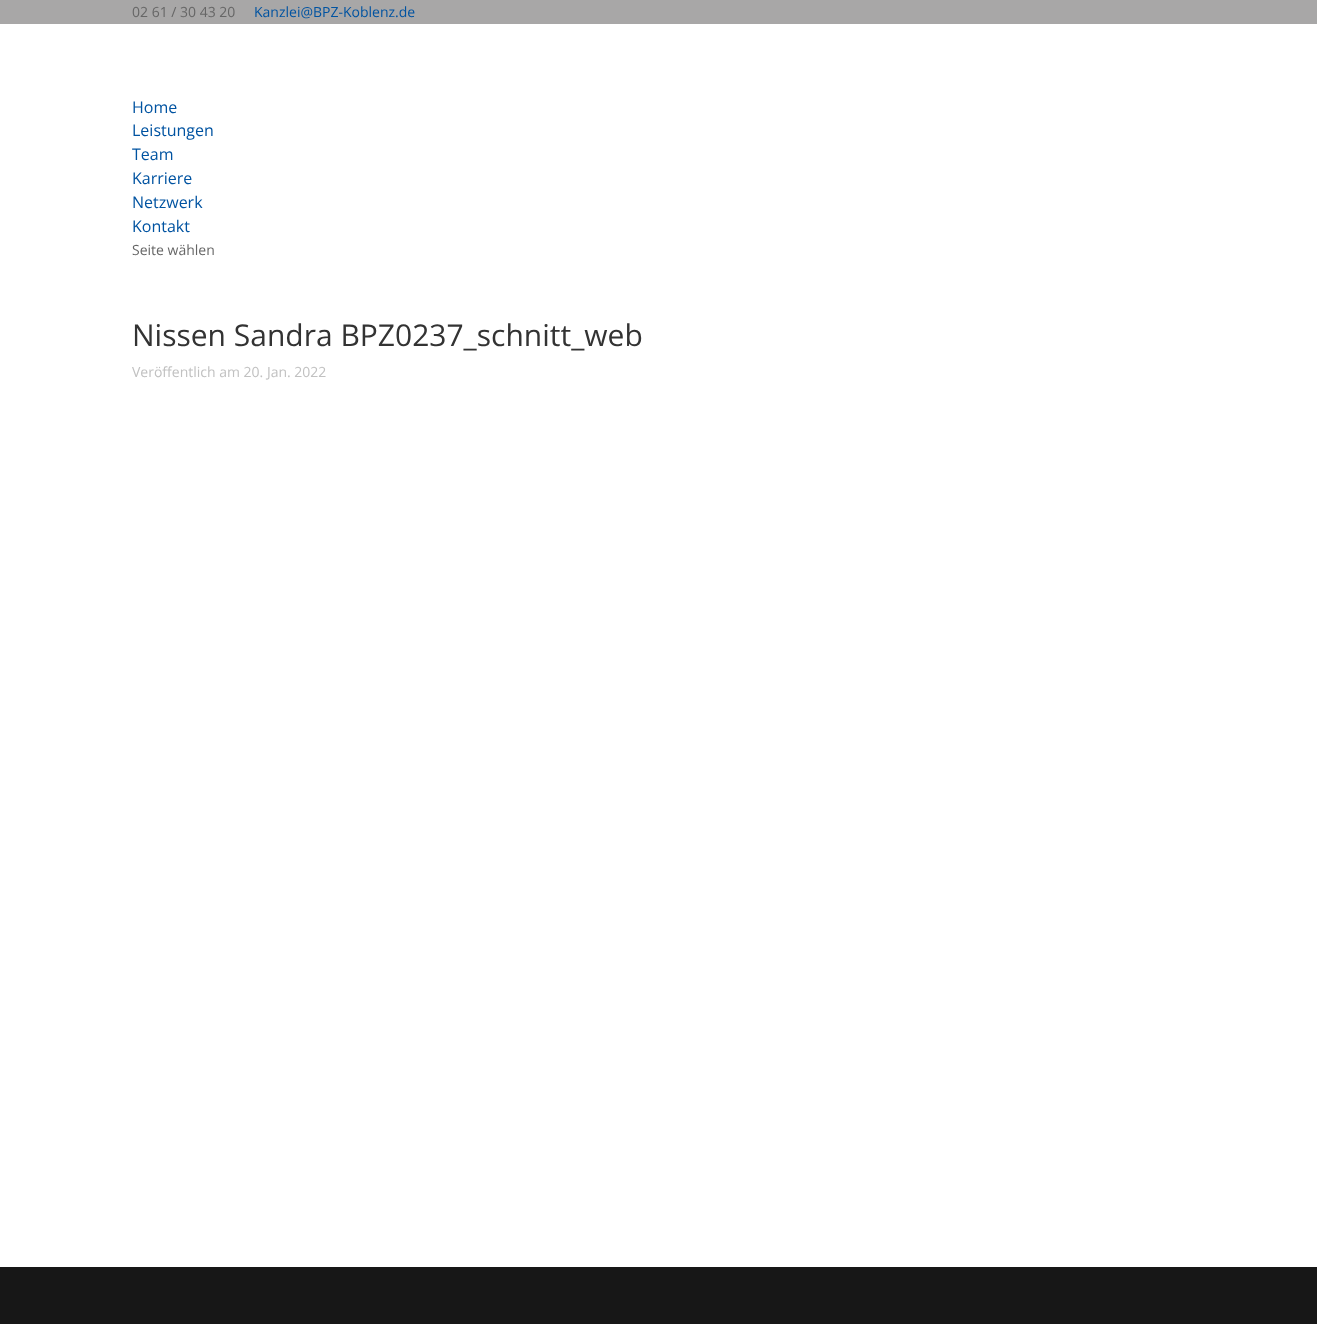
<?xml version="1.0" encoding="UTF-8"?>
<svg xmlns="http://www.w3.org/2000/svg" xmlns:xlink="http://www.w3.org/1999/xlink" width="1317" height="1324">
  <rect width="100%" height="100%" fill="#ffffff" />
  <rect width="1317" height="24" fill="#a8a7a7" />
  <rect y="1267" width="1317" height="57" fill="#171717" />
  <text x="132" y="17" style="font-family: Open Sans; font-size: 14px; fill: #666666">02 61 / 30 43 20</text>
  <text x="254" y="17" style="font-family: Open Sans; font-size: 14px; fill: #0053a1">Kanzlei@BPZ-Koblenz.de</text>
  <text x="132" y="113" style="font-family: Open Sans; font-size: 16px; fill: #0053a1">Home</text>
  <text x="132" y="136" style="font-family: Open Sans; font-size: 16px; fill: #0053a1">Leistungen</text>
  <text x="132" y="160" style="font-family: Open Sans; font-size: 16px; fill: #0053a1">Team</text>
  <text x="132" y="184" style="font-family: Open Sans; font-size: 16px; fill: #0053a1">Karriere</text>
  <text x="132" y="208" style="font-family: Open Sans; font-size: 16px; fill: #0053a1">Netzwerk</text>
  <text x="132" y="232" style="font-family: Open Sans; font-size: 16px; fill: #0053a1">Kontakt</text>
  <text x="132" y="255" style="font-family: Open Sans; font-size: 14px; fill: #666666">Seite wählen</text>
  <text x="132" y="346" style="font-family: Open Sans; font-size: 30px; fill: #333333">Nissen Sandra BPZ0237_schnitt_web</text>
  <text x="132" y="377" style="font-family: Open Sans; font-size: 14px; fill: #c1c1c1">Veröffentlich am 20. Jan. 2022</text>
</svg>
